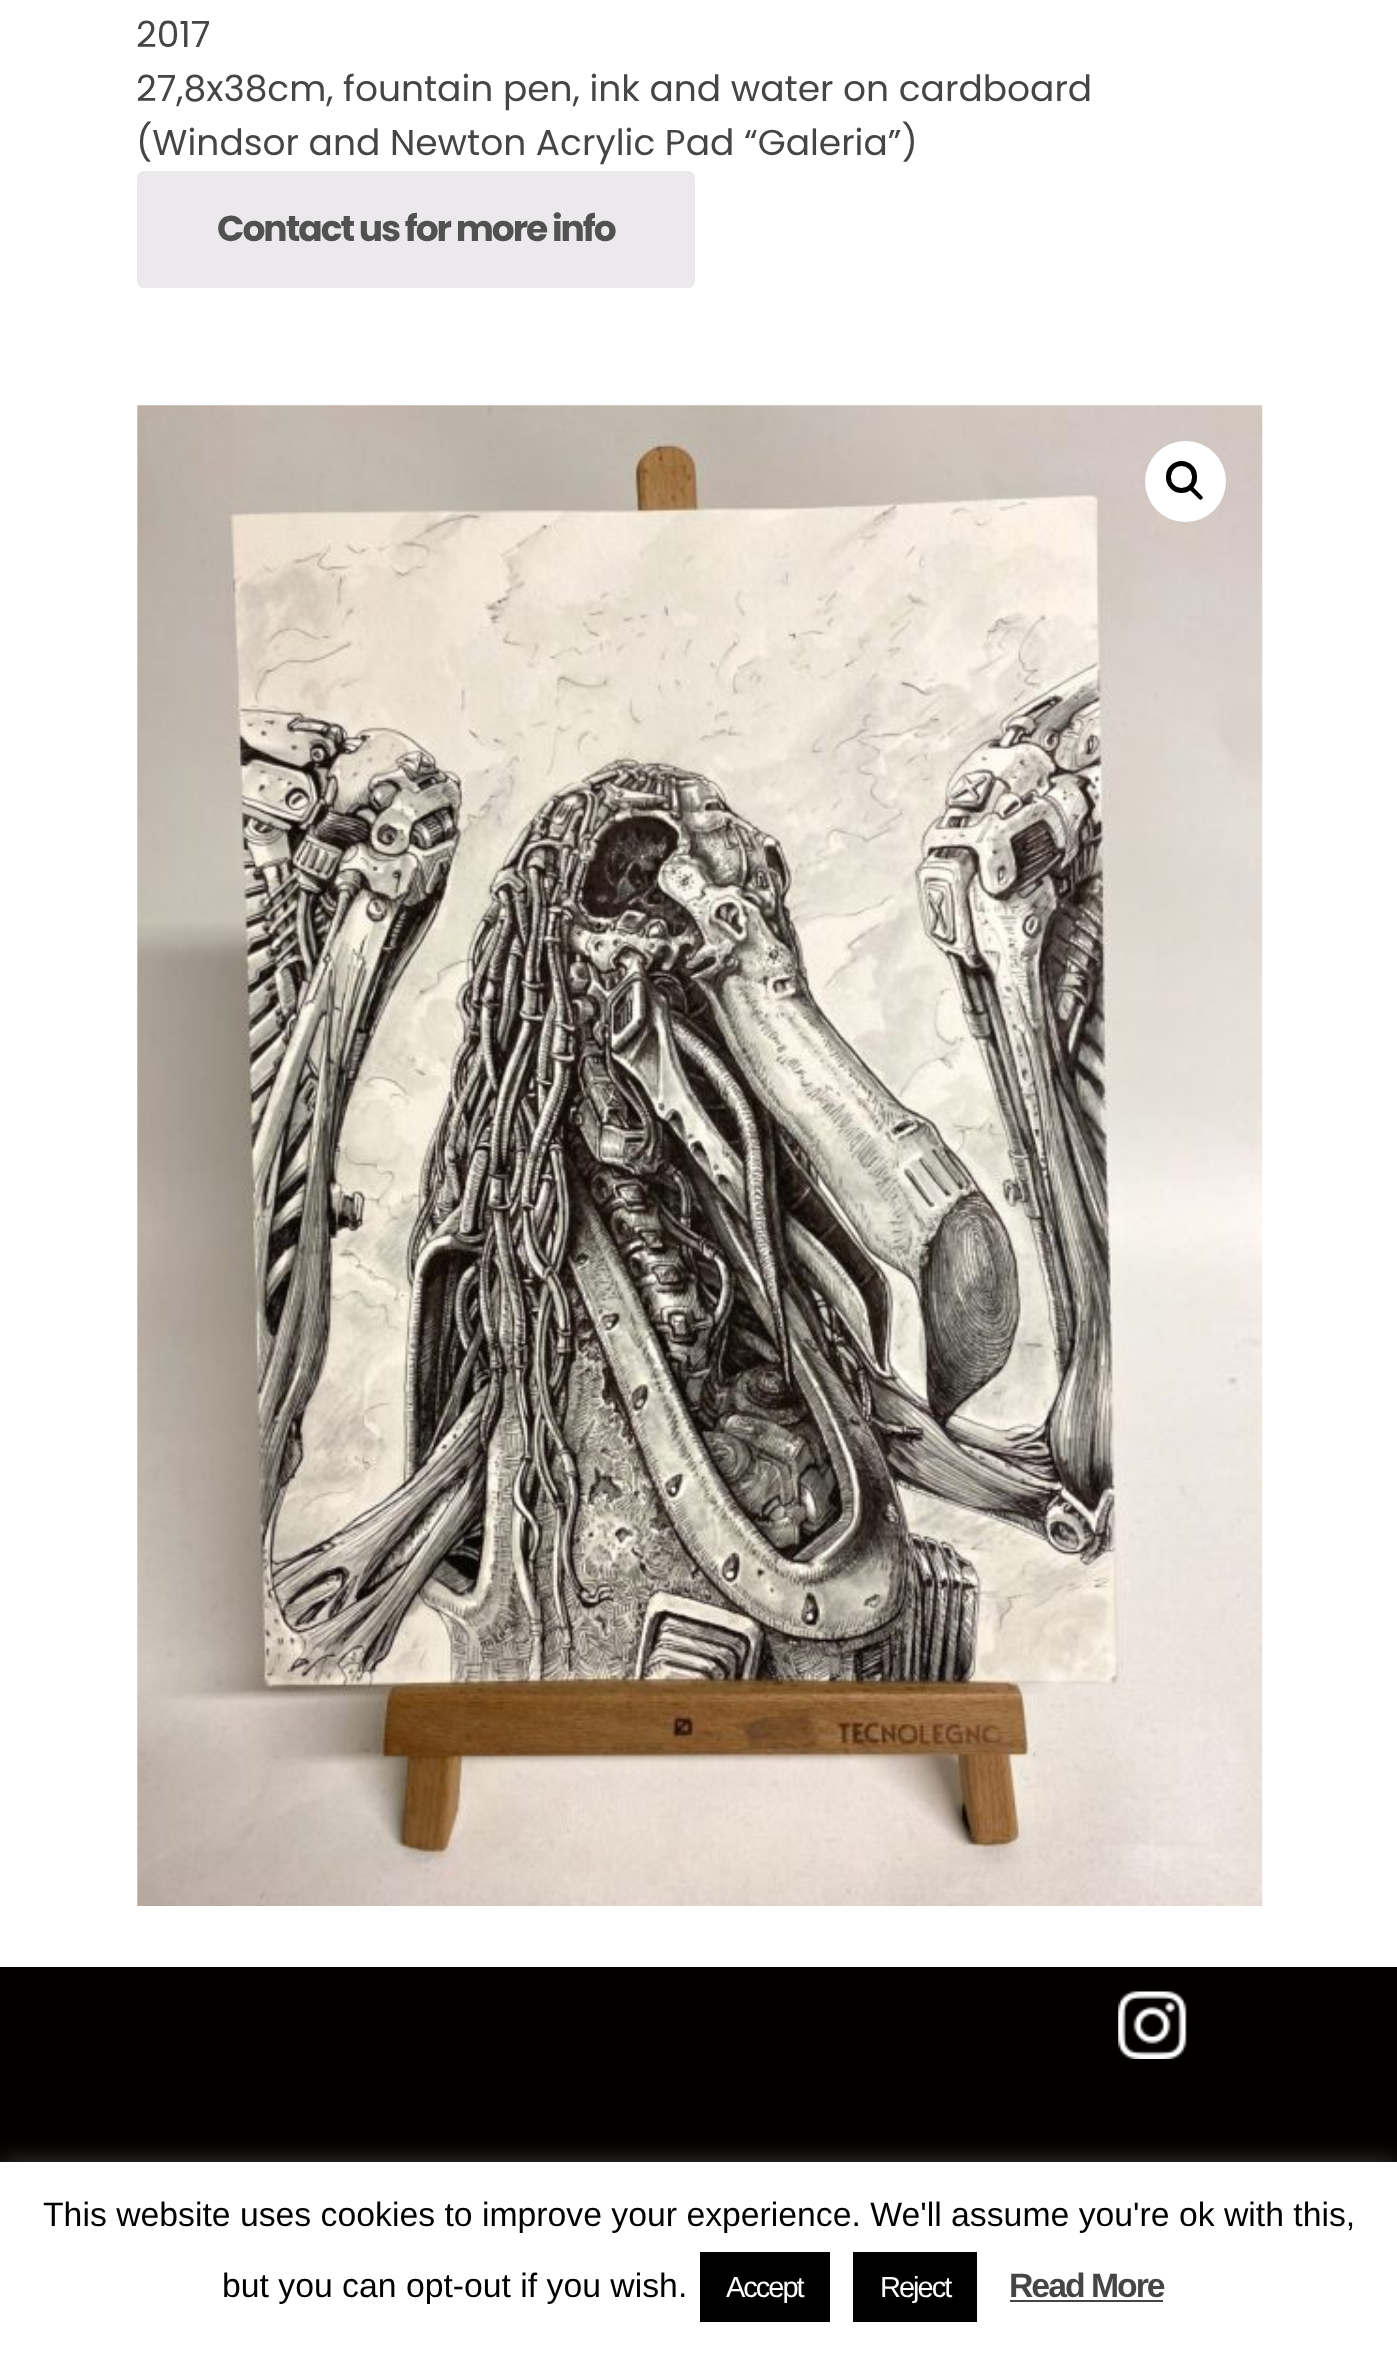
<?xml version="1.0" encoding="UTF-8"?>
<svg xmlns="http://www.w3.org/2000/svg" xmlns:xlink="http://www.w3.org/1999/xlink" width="1397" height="2360">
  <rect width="100%" height="100%" fill="#ffffff" />
  <rect x="137" y="171" width="558" height="117" rx="7" fill="#ebe9eb" />
  <image x="137" y="405" width="1126" height="1501" xlink:href="image1.png" />
  <circle cx="1185.5" cy="481.5" r="40.5" fill="#ffffff" />
  <rect x="1168.5" y="463.5" width="26" height="27" rx="13" fill="none" stroke="#000000" stroke-width="5" />
  <path d="M 1189.5 486.5 c 1 -1 2.5 -1 3 0 l 9.5 9.5 c 1 1 1 2 0 3 c -0.5 1 -2 1 -3 0 l -9.5 -9.5 c -1 -1 -1 -2 0 -3 z" fill="#000000" />
  <rect y="1967" width="1397" height="2" fill="#000000" />
  <rect y="1969" width="1397" height="193" fill="#050000" />
  <image x="1118" y="1991" width="69" height="68" xlink:href="image2.png" />
  <rect y="2160" width="1397" height="198" fill="#acabab" fill-opacity="0.3" filter="blur(11px)" />
  <rect y="2162" width="1397" height="198" fill="#ffffff" />
  <rect x="700" y="2252" width="130" height="70" fill="#000000" />
  <rect x="853" y="2252" width="124" height="70" fill="#000000" />
  <rect x="1010" y="2300" width="153" height="2" fill="#444444" />
  <text x="136" y="47" style="font-family: Poppins; font-size: 36px; fill: #454545">2017</text>
  <text x="136" y="101" style="font-family: Poppins; font-size: 36px; fill: #454545">27,8x38cm, fountain pen, ink and water on cardboard</text>
  <text x="136" y="155" style="font-family: Poppins; font-size: 36px; fill: #454545">(Windsor and Newton Acrylic Pad “Galeria”)</text>
  <text x="217" y="241" style="font-family: Poppins; font-size: 36px; font-weight: bold; letter-spacing: -2px; fill: #515151">Contact us for more info</text>
  <text x="43" y="2226" style="font-family: Liberation Sans; font-size: 33.75px; fill: #000000">This website uses cookies to improve your experience. We'll assume you're ok with this,</text>
  <text x="222" y="2297" style="font-family: Liberation Sans; font-size: 33.75px; fill: #000000">but you can opt-out if you wish.</text>
  <text x="726" y="2297" style="font-family: Liberation Sans; font-size: 29px; letter-spacing: -2px; fill: #ffffff">Accept</text>
  <text x="880" y="2297" style="font-family: Liberation Sans; font-size: 29px; letter-spacing: -2px; fill: #ffffff">Reject</text>
  <text x="1009" y="2297" style="font-family: Liberation Sans; font-size: 33.75px; font-weight: bold; letter-spacing: -2px; fill: #454545">Read More</text>
</svg>
